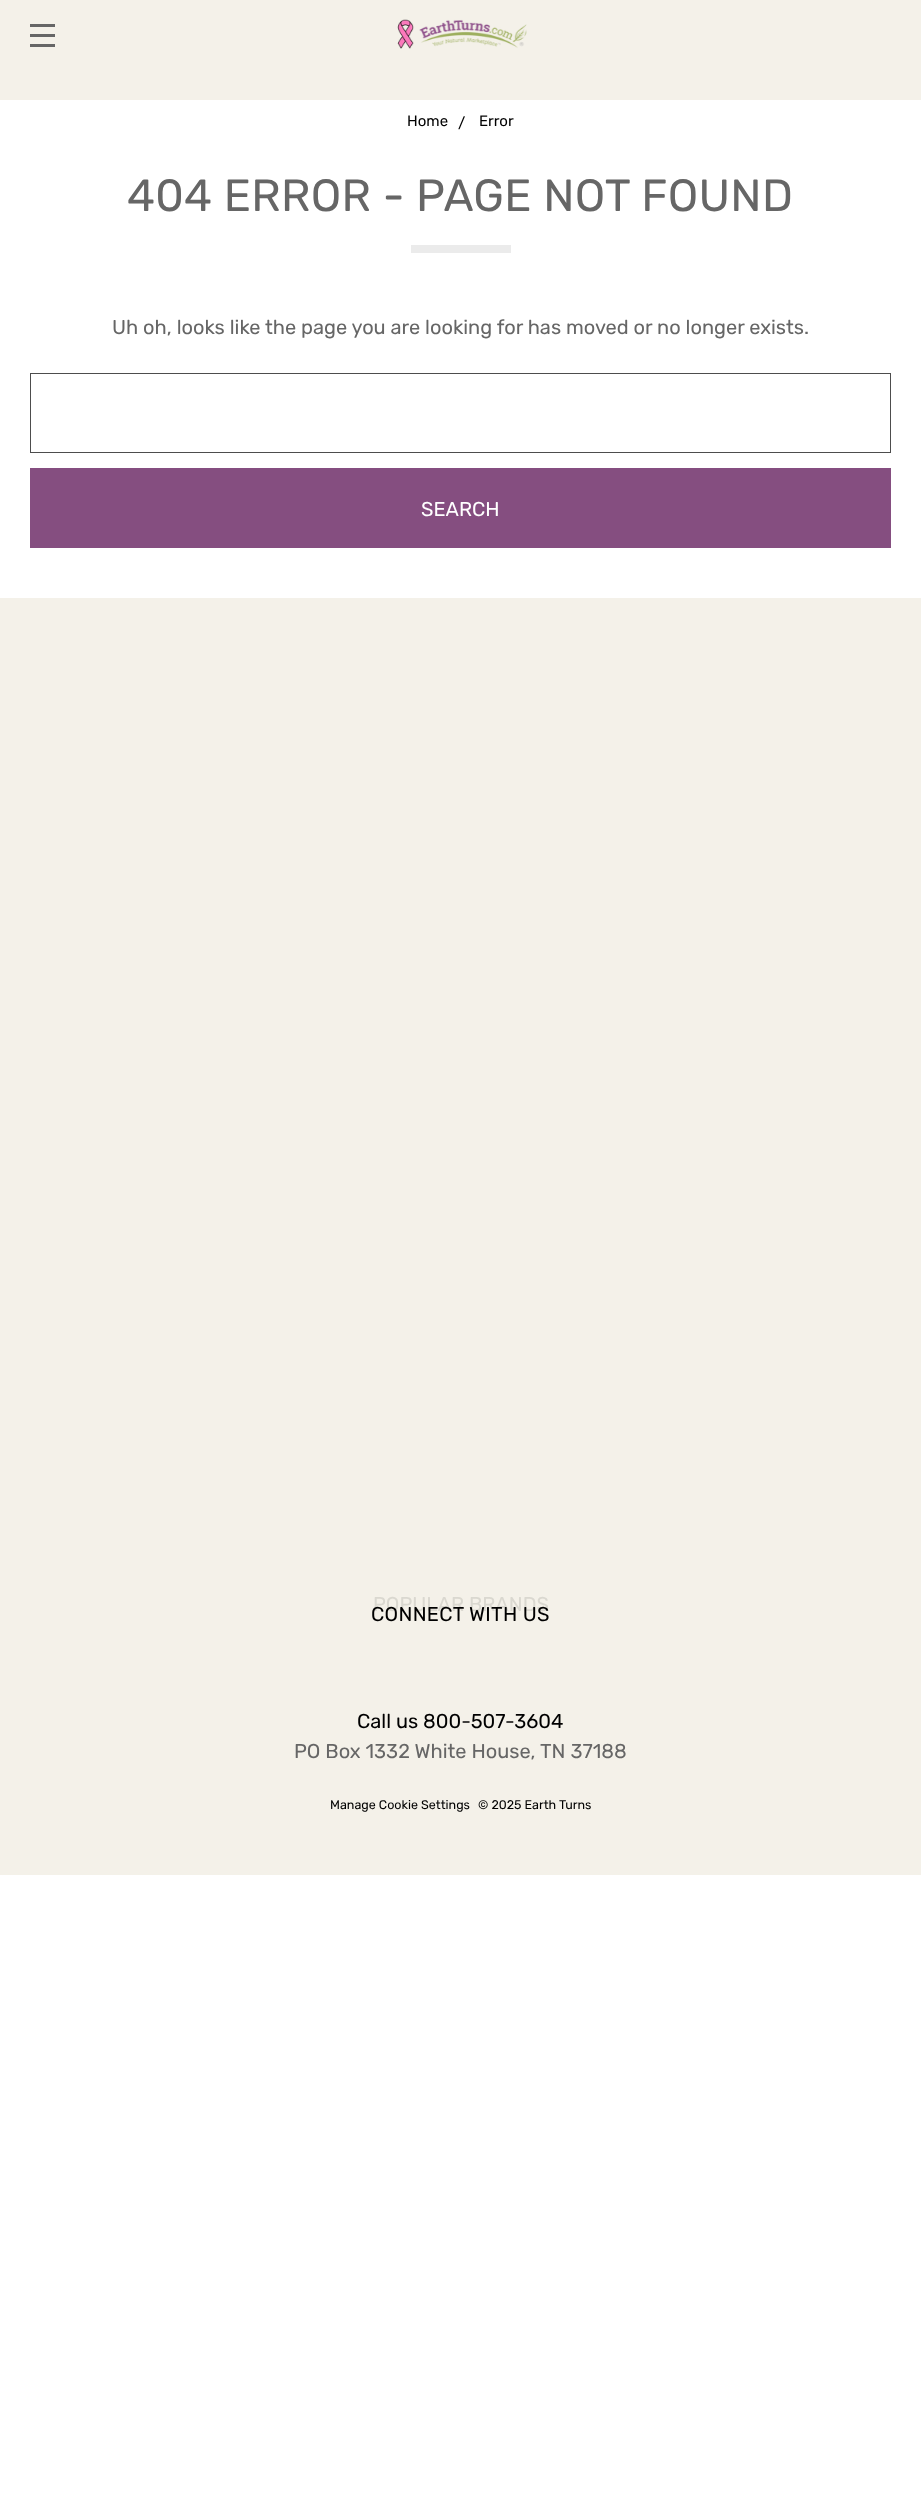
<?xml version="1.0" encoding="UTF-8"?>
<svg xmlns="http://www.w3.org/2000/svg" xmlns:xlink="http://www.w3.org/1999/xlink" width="921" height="2505">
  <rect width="100%" height="100%" fill="#ffffff" />
  <rect width="921" height="100" fill="#f4f1e9" />
  <rect x="30" y="34" width="25" height="3" fill="#666666" />
  <rect x="30" y="24" width="25" height="3" fill="#666666" />
  <rect x="30" y="44" width="25" height="3" fill="#666666" />
  <image x="397" y="19" width="130" height="30" xlink:href="image1.png" />
  <rect x="411" y="245" width="100" height="8" fill="#ebebeb" />
  <rect x="30.5" y="373.5" width="860" height="79" fill="none" stroke="#4d4d4d" />
  <rect x="30" y="468" width="861" height="80" fill="#854e80" />
  <rect y="598" width="921" height="1277" fill="#f4f1e9" />
  <text x="407" y="126" style="font-family: Rubik; font-size: 15px; font-weight: 300; fill: #000000">Home</text>
  <text x="458" y="128" style="font-family: Rubik; font-size: 15px; font-weight: 300; fill: #000000">/</text>
  <text x="479" y="126" style="font-family: Rubik; font-size: 15px; font-weight: 300; fill: #000000">Error</text>
  <text x="127" y="211" style="font-family: Rubik; font-size: 45px; font-weight: 300; letter-spacing: 0.3px; fill: #666666">404 ERROR - PAGE NOT FOUND</text>
  <text x="112" y="334" style="font-family: Rubik; font-size: 20px; font-weight: 300; fill: #666666">Uh oh, looks like the page you are looking for has moved or no longer exists.</text>
  <text x="421" y="516" style="font-family: Rubik; font-size: 20px; font-weight: 300; fill: #ffffff">SEARCH</text>
  <text x="373" y="1611" style="font-family: Rubik; font-size: 20px; font-weight: 300; fill: #dad8d0">POPULAR BRANDS</text>
  <text x="371" y="1621" style="font-family: Rubik; font-size: 20px; font-weight: 300; letter-spacing: 0.3px; fill: #000000">CONNECT WITH US</text>
  <text x="357" y="1728" style="font-family: Rubik; font-size: 20px; font-weight: 300; fill: #000000">Call us 800-507-3604</text>
  <text x="294" y="1758" style="font-family: Rubik; font-size: 20px; font-weight: 300; fill: #666666">PO Box 1332 White House, TN 37188</text>
  <text x="330" y="1809" style="font-family: Rubik; font-size: 12.5px; font-weight: 300; fill: #000000">Manage Cookie Settings</text>
  <text x="478" y="1809" style="font-family: Rubik; font-size: 12.5px; font-weight: 300; fill: #000000">© 2025 Earth Turns</text>
</svg>
